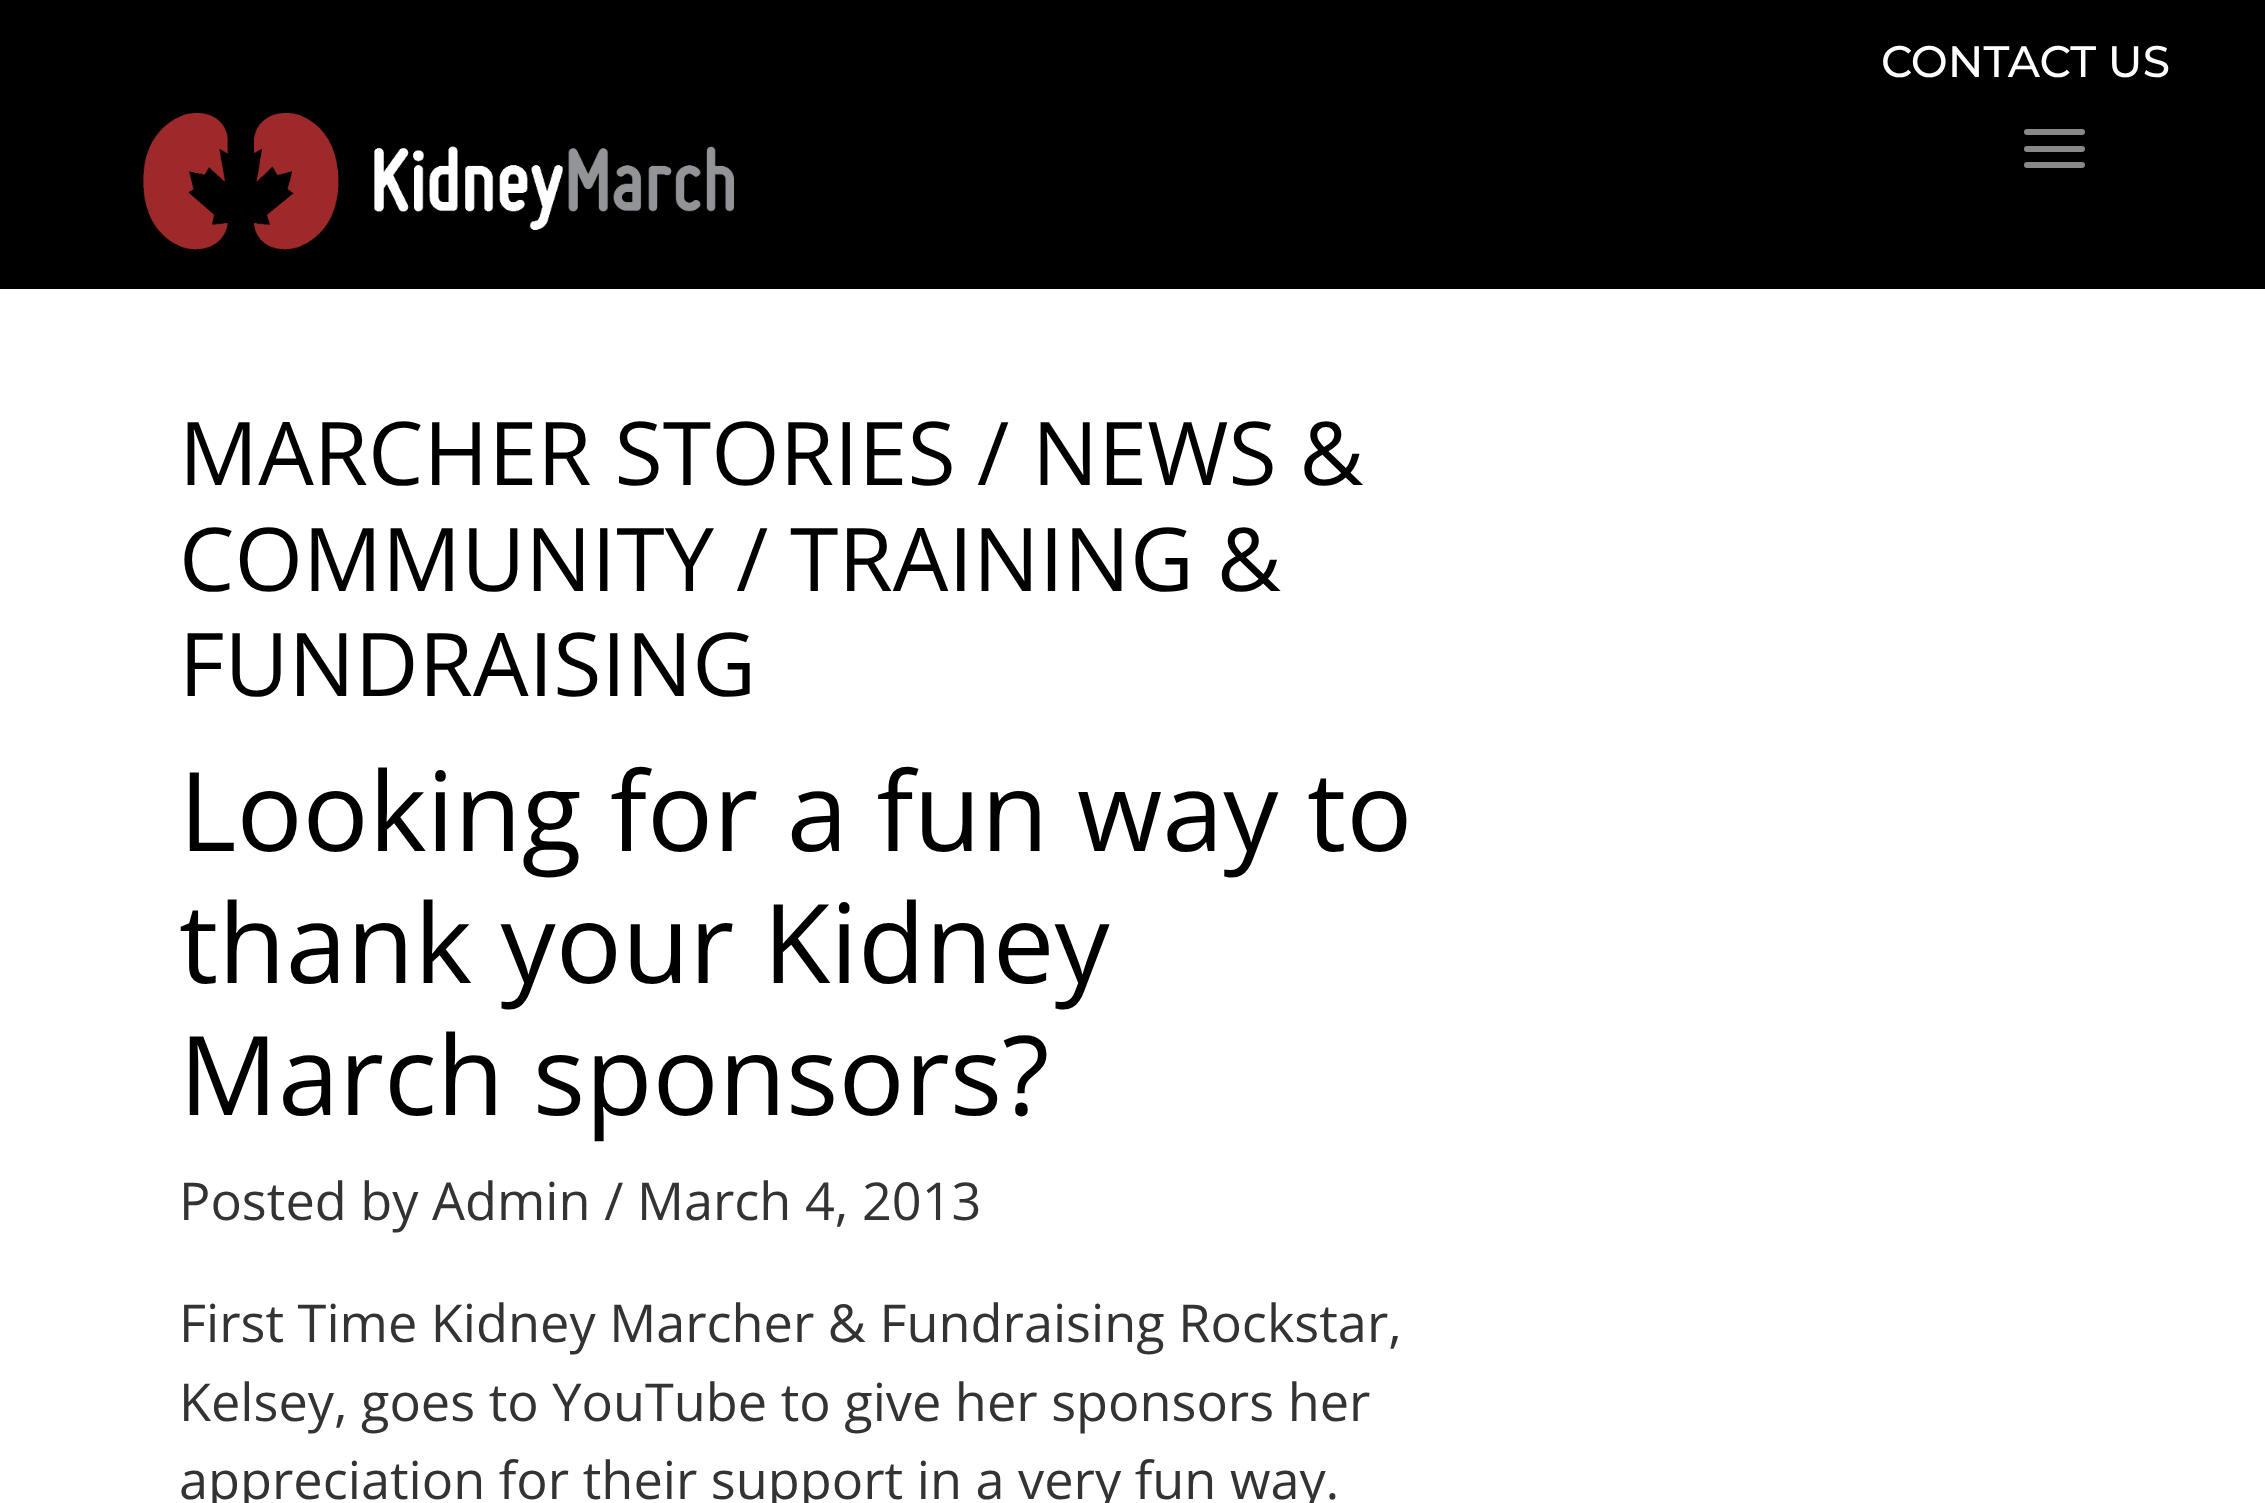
<?xml version="1.0" encoding="UTF-8"?>
<svg xmlns="http://www.w3.org/2000/svg" xmlns:xlink="http://www.w3.org/1999/xlink" width="2265" height="1503">
  <rect width="100%" height="100%" fill="#000000" />
  <image x="143" y="113" width="591" height="137" xlink:href="image1.png" />
  <rect x="2024" y="129" width="61" height="6" rx="3" fill="#888888" />
  <rect x="2024" y="146" width="61" height="6" rx="3" fill="#888888" />
  <rect x="2024" y="162" width="61" height="6" rx="3" fill="#888888" />
  <rect y="289" width="2265" height="1214" fill="#ffffff" />
  <text x="1881" y="77" style="font-family: Montserrat; font-size: 44px; font-weight: 500; fill: #ffffff">CONTACT US</text>
  <text x="179" y="485" style="font-family: Open Sans; font-size: 88px; fill: #000000">MARCHER STORIES</text>
  <text x="977" y="485" style="font-family: Open Sans; font-size: 88px; fill: #000000">/</text>
  <text x="1032" y="485" style="font-family: Open Sans; font-size: 88px; fill: #000000">NEWS &amp;</text>
  <text x="179" y="591" style="font-family: Open Sans; font-size: 88px; fill: #000000">COMMUNITY</text>
  <text x="736" y="591" style="font-family: Open Sans; font-size: 88px; fill: #000000">/</text>
  <text x="790" y="591" style="font-family: Open Sans; font-size: 88px; fill: #000000">TRAINING &amp;</text>
  <text x="179" y="696" style="font-family: Open Sans; font-size: 88px; fill: #000000">FUNDRAISING</text>
  <text x="179" y="851" style="font-family: Open Sans; font-size: 110px; fill: #000000">Looking for a fun way to</text>
  <text x="179" y="983" style="font-family: Open Sans; font-size: 110px; fill: #000000">thank your Kidney</text>
  <text x="179" y="1115" style="font-family: Open Sans; font-size: 110px; fill: #000000">March sponsors?</text>
  <text x="179" y="1220" style="font-family: Open Sans; font-size: 52.25px; fill: #333333">Posted by Admin / March 4, 2013</text>
  <text x="179" y="1342" style="font-family: Open Sans; font-size: 52.25px; fill: #333333">First Time Kidney Marcher &amp; Fundraising Rockstar,</text>
  <text x="179" y="1421" style="font-family: Open Sans; font-size: 52.25px; fill: #333333">Kelsey, goes to YouTube to give her sponsors her</text>
  <text x="179" y="1499" style="font-family: Open Sans; font-size: 52.25px; fill: #333333">appreciation for their support in a very fun way.</text>
</svg>
